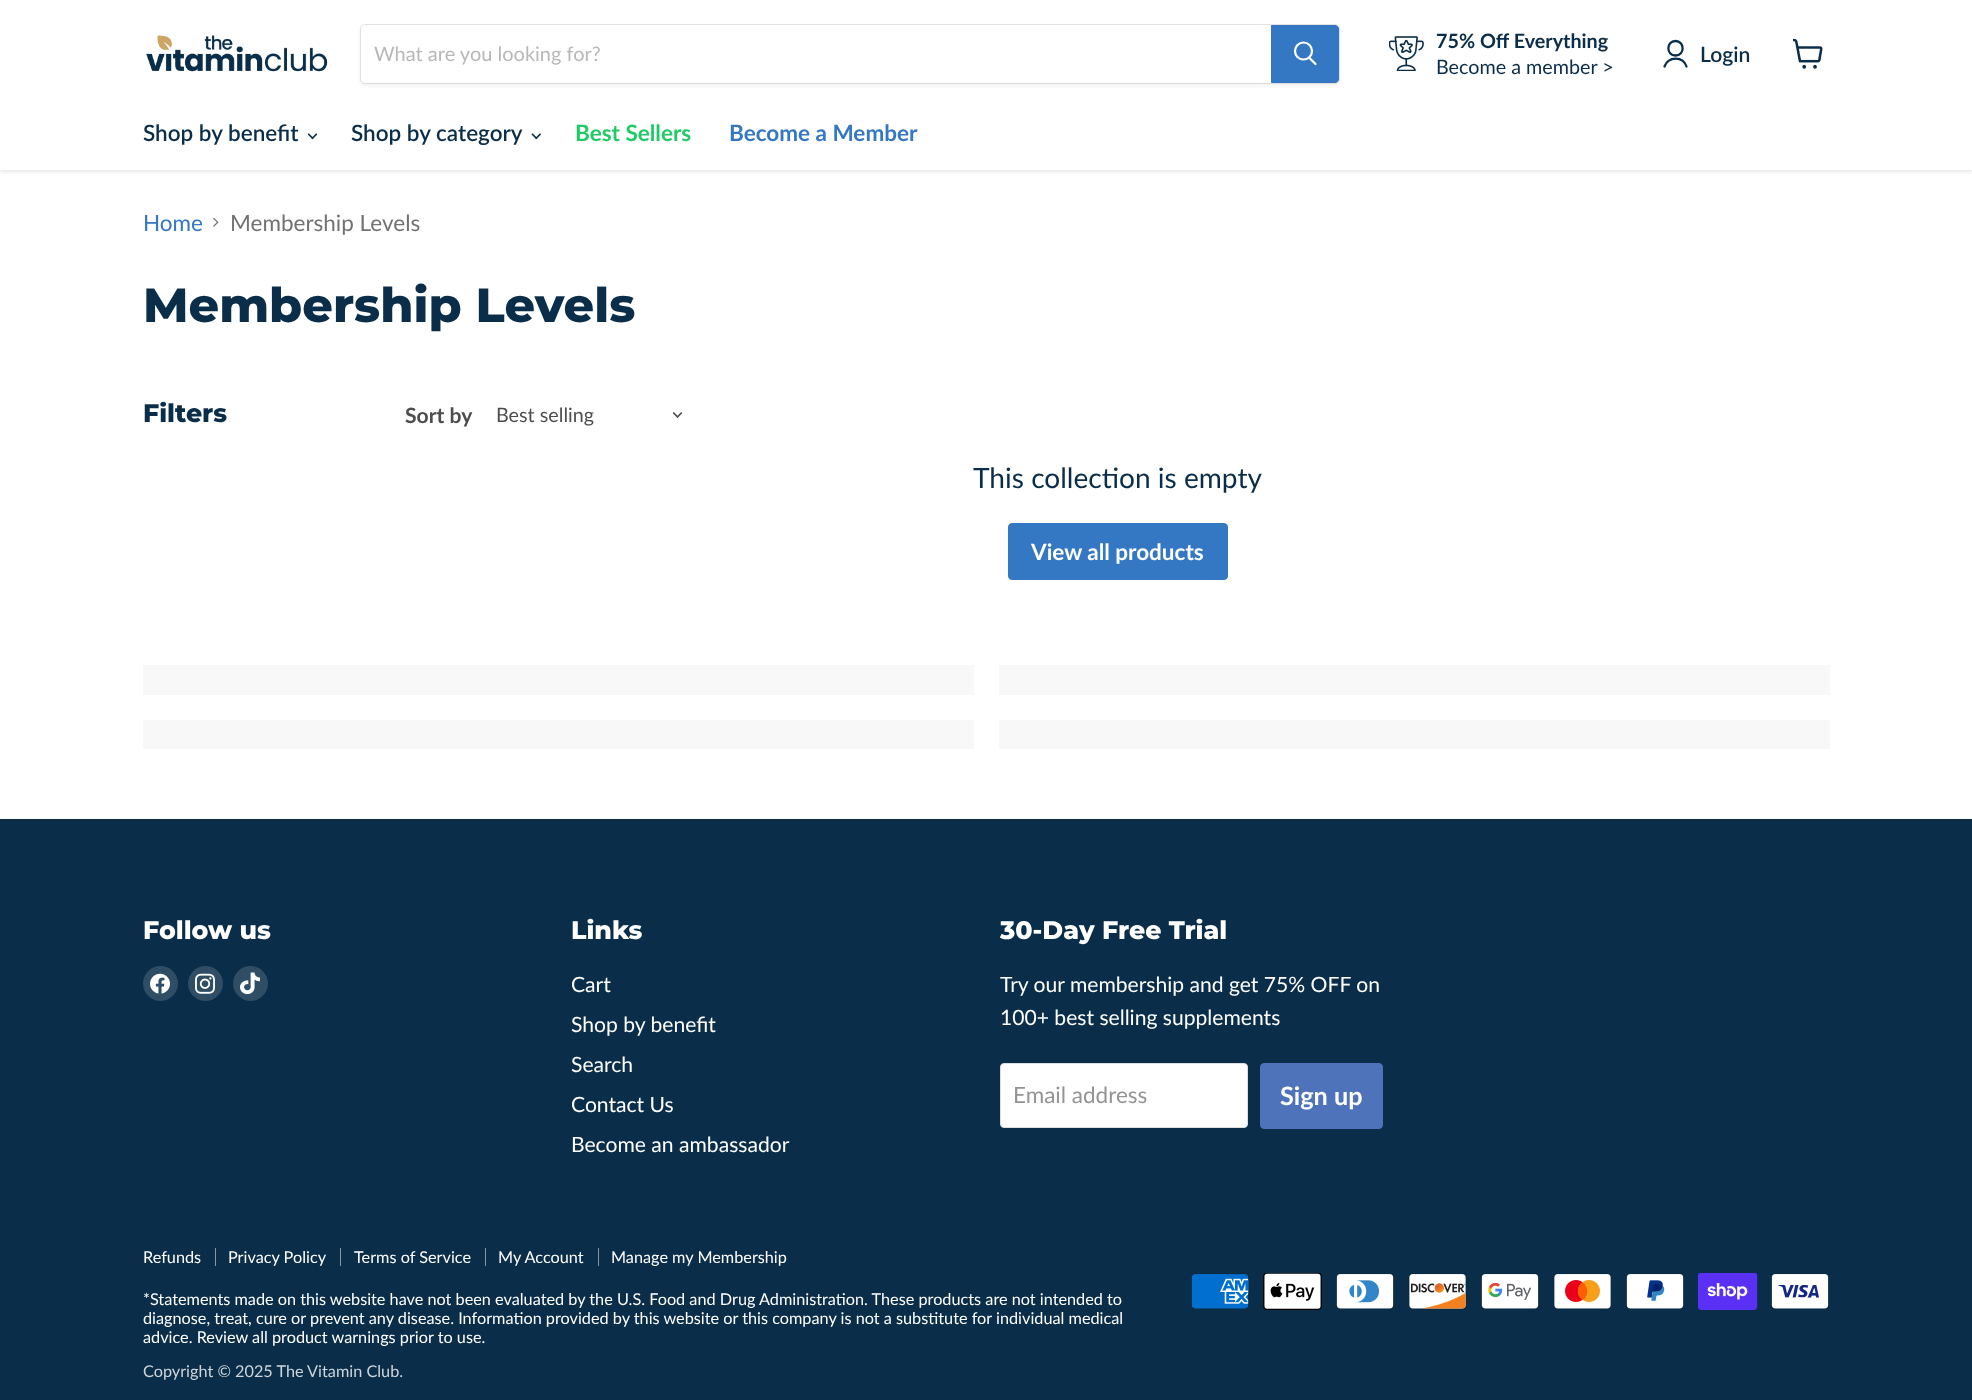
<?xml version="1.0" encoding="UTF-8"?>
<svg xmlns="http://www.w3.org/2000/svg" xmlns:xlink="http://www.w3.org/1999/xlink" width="1972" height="1400">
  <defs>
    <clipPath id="clip1"><rect x="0" y="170" width="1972" height="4" /></clipPath>
  </defs>
  <rect width="100%" height="100%" fill="#ffffff" />
  <g clip-path="url(#clip1)">
    <rect y="1" width="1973" height="170" fill="#808080" fill-opacity="0.25" filter="blur(2.5px)" />
  </g>
  <image x="146" y="35" width="182" height="37" xlink:href="image1.png" />
  <rect x="360" y="26" width="980" height="60" rx="5" fill="#808080" fill-opacity="0.11" filter="blur(2px)" />
  <rect x="360.5" y="24.5" width="979" height="59" rx="4.5" fill="none" stroke="#808080" stroke-opacity="0.2" />
  <path d="M 365 25 h 906 v 58 h -906 c -2 0 -4 -2 -4 -4 v -50 c 0 -2 2 -4 4 -4 z" fill="#ffffff" />
  <path d="M 1271.5 25.5 h 63.5 c 2 0 3.5 1.5 3.5 3.5 v 50 c 0 2 -1.5 3.5 -3.5 3.5 h -63.5 z" fill="#3477c2" stroke="#3477c2" />
  <path d="M 1315.5 64 l -6 -6" fill="none" stroke="#ffffff" stroke-width="2.2" stroke-linecap="round" />
  <circle cx="1303.5" cy="51" r="8.5" fill="none" stroke="#ffffff" stroke-width="2.2" />
  <image x="1389" y="36" width="35" height="35" xlink:href="image2.png" />
  <path d="M 1675.5 55.5 c 9.5 0 9.5 -14.5 0 -14.5 c -9.5 0 -9.5 14.5 0 14.5 z m 11 11 c -3.5 -10.5 -18 -10.5 -22 0" fill="none" stroke="#0a2e49" stroke-width="2.3" stroke-linecap="round" stroke-linejoin="round" />
  <image x="1793" y="39" width="30" height="30" xlink:href="image3.png" />
  <image x="308" y="133" width="10" height="7" xlink:href="image4.png" />
  <image x="531" y="133" width="10" height="7" xlink:href="image5.png" />
  <image x="213" y="217" width="6" height="10" xlink:href="image6.png" />
  <image x="673" y="412" width="10" height="6" xlink:href="image7.png" />
  <rect x="1008.5" y="523.5" width="219" height="56" rx="3.5" fill="#3477c2" stroke="#3477c2" />
  <rect x="143" y="665" width="831" height="30" fill="#f8f8f8" />
  <rect x="999" y="665" width="831" height="30" fill="#f8f8f8" />
  <rect x="143" y="720" width="831" height="29" fill="#f8f8f8" />
  <rect x="999" y="720" width="831" height="29" fill="#f8f8f8" />
  <rect y="819" width="1972" height="581" fill="#0a2e49" />
  <circle cx="160.5" cy="983.5" r="17.5" fill="#2f4d64" />
  <image x="150" y="973" width="20" height="21" xlink:href="image8.png" />
  <circle cx="205.5" cy="983.5" r="17.5" fill="#2f4d64" />
  <image x="195" y="973" width="20" height="21" xlink:href="image9.png" />
  <circle cx="250.5" cy="983.5" r="17.5" fill="#2f4d64" />
  <image x="240" y="972" width="20" height="23" xlink:href="image10.png" />
  <rect x="1000.5" y="1063.5" width="247" height="64" rx="3.5" fill="#ffffff" stroke="#dddddd" />
  <rect x="1260.5" y="1063.5" width="122" height="65" rx="3.5" fill="#4e73bb" stroke="#4e73bb" />
  <rect x="215" y="1248" width="1" height="18" fill="#8597a4" />
  <rect x="340" y="1248" width="1" height="18" fill="#8597a4" />
  <rect x="485" y="1248" width="1" height="18" fill="#8597a4" />
  <rect x="598" y="1248" width="1" height="18" fill="#8597a4" />
  <image x="1191" y="1273" width="58" height="37" xlink:href="image11.png" />
  <image x="1263" y="1273" width="59" height="37" xlink:href="image12.png" />
  <image x="1336" y="1273" width="58" height="37" xlink:href="image13.png" />
  <image x="1408" y="1273" width="59" height="37" xlink:href="image14.png" />
  <image x="1481" y="1273" width="58" height="37" xlink:href="image15.png" />
  <image x="1553" y="1273" width="59" height="37" xlink:href="image16.png" />
  <image x="1626" y="1273" width="58" height="37" xlink:href="image17.png" />
  <image x="1698" y="1273" width="60" height="37" xlink:href="image18.png" />
  <image x="1771" y="1273" width="58" height="37" xlink:href="image19.png" />
  <text x="374" y="61" style="font-family: Lato; font-size: 20px; fill: #b8b8b8">What are you looking for?</text>
  <text x="1436" y="48" style="font-family: Lato; font-size: 19.75px; font-weight: bold; fill: #0a2e49">75% Off Everything</text>
  <text x="1436" y="74" style="font-family: Lato; font-size: 19.75px; fill: #0a2e49">Become a member &gt;</text>
  <text x="1700" y="62" style="font-family: Lato; font-size: 21.1px; font-weight: 600; fill: #0a2e49">Login</text>
  <text x="143" y="141" style="font-family: Lato; font-size: 22.5px; font-weight: 600; fill: #0a2e49">Shop by benefit</text>
  <text x="351" y="141" style="font-family: Lato; font-size: 22.5px; font-weight: 600; fill: #0a2e49">Shop by category</text>
  <text x="575" y="141" style="font-family: Lato; font-size: 22.5px; font-weight: bold; fill: #20cb65">Best Sellers</text>
  <text x="729" y="141" style="font-family: Lato; font-size: 22.5px; font-weight: bold; fill: #3477c2">Become a Member</text>
  <text x="143" y="231" style="font-family: Lato; font-size: 22.5px; fill: #3477c2">Home</text>
  <text x="230" y="231" style="font-family: Lato; font-size: 22.5px; fill: #727272">Membership Levels</text>
  <text x="143" y="322" style="font-family: Montserrat; font-size: 47.75px; font-weight: 800; fill: #0a2e49">Membership Levels</text>
  <text x="143" y="422" style="font-family: Montserrat; font-size: 25.25px; font-weight: 800; fill: #0a2e49">Filters</text>
  <text x="405" y="423" style="font-family: Lato; font-size: 21.1px; font-weight: bold; fill: #4d4d4d">Sort by</text>
  <text x="496" y="422" style="font-family: Lato; font-size: 19.75px; fill: #4d4d4d">Best selling</text>
  <text x="973" y="488" style="font-family: Lato; font-size: 28.1px; fill: #0a2e49">This collection is empty</text>
  <text x="1031" y="560" style="font-family: Lato; font-size: 22.5px; font-weight: bold; fill: #ffffff">View all products</text>
  <text x="143" y="939" style="font-family: Montserrat; font-size: 25.25px; font-weight: 800; fill: #ffffff">Follow us</text>
  <text x="571" y="939" style="font-family: Montserrat; font-size: 25.25px; font-weight: 800; fill: #ffffff">Links</text>
  <text x="571" y="992" style="font-family: Lato; font-size: 21.1px; fill: #ffffff">Cart</text>
  <text x="571" y="1032" style="font-family: Lato; font-size: 21.1px; fill: #ffffff">Shop by benefit</text>
  <text x="571" y="1072" style="font-family: Lato; font-size: 21.1px; fill: #ffffff">Search</text>
  <text x="571" y="1112" style="font-family: Lato; font-size: 21.1px; fill: #ffffff">Contact Us</text>
  <text x="571" y="1152" style="font-family: Lato; font-size: 21.1px; fill: #ffffff">Become an ambassador</text>
  <text x="1000" y="939" style="font-family: Montserrat; font-size: 25.25px; font-weight: 800; fill: #ffffff">30-Day Free Trial</text>
  <text x="1000" y="992" style="font-family: Lato; font-size: 21.1px; fill: #ffffff">Try our membership and get 75% OFF on</text>
  <text x="1000" y="1025" style="font-family: Lato; font-size: 21.1px; fill: #ffffff">100+ best selling supplements</text>
  <text x="1013" y="1103" style="font-family: Lato; font-size: 22.5px; fill: #949494">Email address</text>
  <text x="1280" y="1105" style="font-family: Lato; font-size: 25.25px; font-weight: bold; fill: #ffffff">Sign up</text>
  <text x="143" y="1263" style="font-family: Lato; font-size: 16.25px; fill: #ffffff">Refunds</text>
  <text x="228" y="1263" style="font-family: Lato; font-size: 16.25px; fill: #ffffff">Privacy Policy</text>
  <text x="354" y="1263" style="font-family: Lato; font-size: 16.25px; fill: #ffffff">Terms of Service</text>
  <text x="498" y="1263" style="font-family: Lato; font-size: 16.25px; fill: #ffffff">My Account</text>
  <text x="611" y="1263" style="font-family: Lato; font-size: 16.25px; fill: #ffffff">Manage my Membership</text>
  <text x="143" y="1305" style="font-family: Lato; font-size: 16.25px; fill: #ffffff">*Statements made on this website have not been evaluated by the U.S. Food and Drug Administration. These products are not intended to</text>
  <text x="143" y="1324" style="font-family: Lato; font-size: 16.25px; fill: #ffffff">diagnose, treat, cure or prevent any disease. Information provided by this website or this company is not a substitute for individual medical</text>
  <text x="143" y="1343" style="font-family: Lato; font-size: 16.25px; fill: #ffffff">advice. Review all product warnings prior to use.</text>
  <text x="143" y="1377" style="font-family: Lato; font-size: 16.25px; fill: #ced5db">Copyright © 2025 The Vitamin Club.</text>
</svg>
